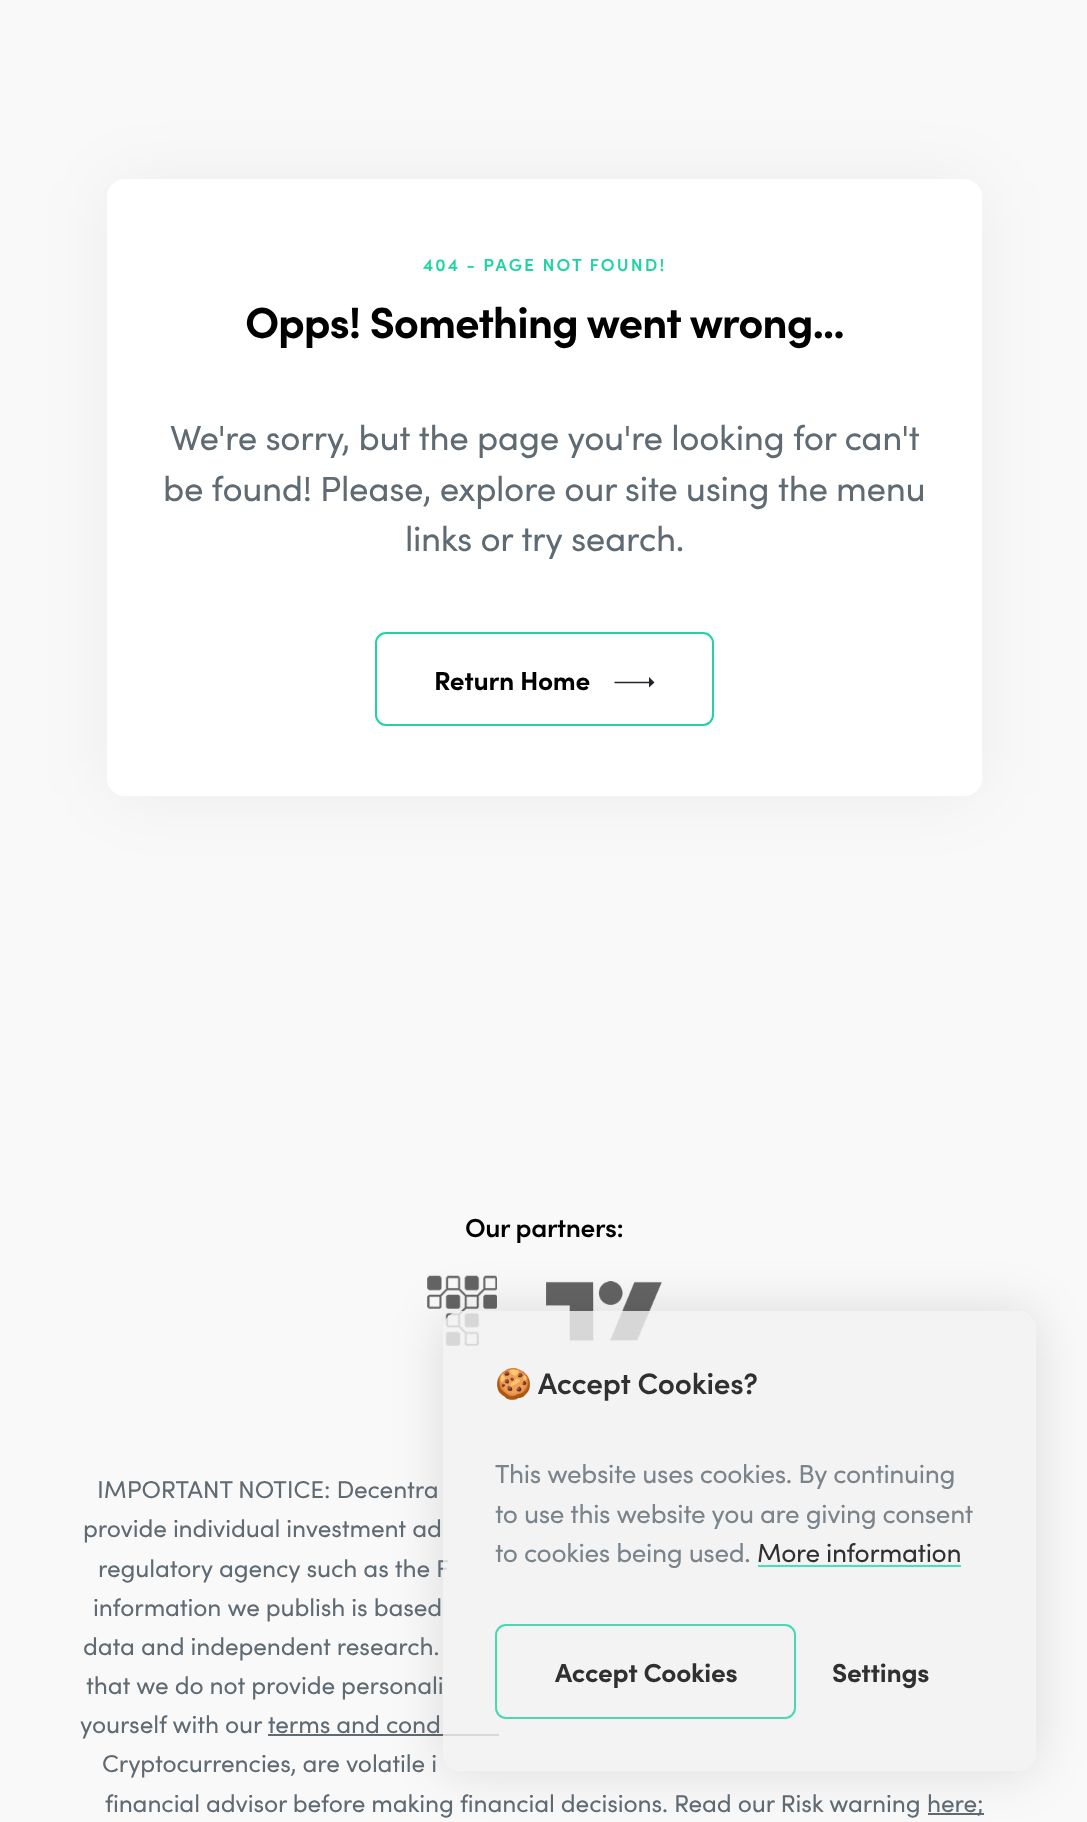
<?xml version="1.0" encoding="UTF-8"?>
<svg xmlns="http://www.w3.org/2000/svg" xmlns:xlink="http://www.w3.org/1999/xlink" width="1087" height="1822">
  <defs>
    <clipPath id="clip1"><path d="M 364 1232 h 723 v 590 h -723 z m 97 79 h 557 c 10 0 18 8 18 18 v 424 c 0 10 -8 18 -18 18 h -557 c -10 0 -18 -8 -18 -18 v -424 c 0 -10 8 -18 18 -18 z" clip-rule="evenodd" /></clipPath>
  </defs>
  <rect width="100%" height="100%" fill="#f9f9f9" />
  <rect x="107" y="180" width="875" height="618" rx="18" fill="#000000" fill-opacity="0.05" filter="blur(35px)" />
  <rect x="107" y="179" width="875" height="617" rx="18" fill="#ffffff" />
  <rect x="376" y="633" width="337" height="92" rx="10" fill="none" stroke="#21d3a3" stroke-width="2" />
  <path d="M 614.5 682.5 h 34.5" fill="none" stroke="#212529" stroke-width="1.7" />
  <path d="M 649 687.5 l 5.5 -5 l -5.5 -5.5 z" fill="#212529" />
  <image x="427" y="1275" width="70" height="71" xlink:href="image1.png" />
  <image x="546" y="1281" width="116" height="60" xlink:href="image2.png" />
  <rect x="268" y="1734" width="231" height="2" fill="#5f6a72" />
  <rect x="928" y="1813" width="56" height="2" fill="#5f6a72" />
  <g clip-path="url(#clip1)">
    <rect x="443" y="1311" width="593" height="460" rx="18" fill="#000000" fill-opacity="0.12" filter="blur(26px)" />
  </g>
  <text x="423" y="271" style="font-family: Sofia; font-size: 17.5px; font-weight: 600; letter-spacing: 2.1px; fill: #21d3a3">404 - PAGE NOT FOUND!</text>
  <text x="245" y="338" style="font-family: Sofia; font-size: 43.75px; font-weight: bold; letter-spacing: -1.1px; fill: #000000">Opps! Something went wrong...</text>
  <text x="170" y="450" style="font-family: Sofia; font-size: 35px; letter-spacing: -0.35px; fill: #5f6a72">We're sorry, but the page you're looking for can't</text>
  <text x="163" y="501" style="font-family: Sofia; font-size: 35px; letter-spacing: -0.35px; fill: #5f6a72">be found! Please, explore our site using the menu</text>
  <text x="405" y="551" style="font-family: Sofia; font-size: 35px; letter-spacing: -0.35px; fill: #5f6a72">links or try search.</text>
  <text x="434" y="690" style="font-family: Sofia; font-size: 26.25px; font-weight: bold; letter-spacing: -0.25px; fill: #000000">Return Home</text>
  <text x="465" y="1237" style="font-family: Sofia; font-size: 26.25px; font-weight: 600; letter-spacing: -0.4px; fill: #000000">Our partners:</text>
  <text x="97" y="1498" style="font-family: Sofia; font-size: 24.5px; letter-spacing: -0.12px; fill: #5f6a72">IMPORTANT NOTICE: Decentra</text>
  <text x="83" y="1537" style="font-family: Sofia; font-size: 24.5px; letter-spacing: -0.12px; fill: #5f6a72">provide individual investment ad</text>
  <text x="98" y="1577" style="font-family: Sofia; font-size: 24.5px; letter-spacing: -0.12px; fill: #5f6a72">regulatory agency such as the F</text>
  <text x="93" y="1616" style="font-family: Sofia; font-size: 24.5px; letter-spacing: -0.12px; fill: #5f6a72">information we publish is based</text>
  <text x="83" y="1655" style="font-family: Sofia; font-size: 24.5px; letter-spacing: -0.12px; fill: #5f6a72">data and independent research.</text>
  <text x="86" y="1694" style="font-family: Sofia; font-size: 24.5px; letter-spacing: -0.12px; fill: #5f6a72">that we do not provide personali</text>
  <text x="80" y="1733" style="font-family: Sofia; font-size: 24.5px; letter-spacing: -0.12px; fill: #5f6a72">yourself with our terms and cond</text>
  <text x="102" y="1772" style="font-family: Sofia; font-size: 24.5px; letter-spacing: -0.12px; fill: #5f6a72">Cryptocurrencies, are volatile i</text>
  <text x="105" y="1812" style="font-family: Sofia; font-size: 24.5px; letter-spacing: -0.12px; fill: #5f6a72">financial advisor before making financial decisions. Read our Risk warning</text>
  <text x="927" y="1812" style="font-family: Sofia; font-size: 24.5px; letter-spacing: -0.12px; fill: #5f6a72">here;</text>
  <rect x="443" y="1311" width="593" height="460" rx="18" fill="#f1f1f1" fill-opacity="0.81" />
  <text x="495" y="1394" style="font-family: Noto Color Emoji; font-size: 29.75px; font-weight: bold; letter-spacing: -0.25px; fill: #303030">🍪</text>
  <text x="538" y="1394" style="font-family: Sofia; font-size: 29.75px; font-weight: 600; letter-spacing: -0.25px; fill: #303030">Accept Cookies?</text>
  <text x="495" y="1483" style="font-family: Sofia; font-size: 26.25px; letter-spacing: -0.35px; fill: #7b848b">This website uses cookies. By continuing</text>
  <text x="495" y="1523" style="font-family: Sofia; font-size: 26.25px; letter-spacing: -0.35px; fill: #7b848b">to use this website you are giving consent</text>
  <text x="495" y="1562" style="font-family: Sofia; font-size: 26.25px; letter-spacing: -0.35px; fill: #7b848b">to cookies being used.</text>
  <text x="757" y="1562" style="font-family: Sofia; font-size: 26.25px; letter-spacing: -0.35px; fill: #303030">More information</text>
  <rect x="758" y="1565" width="203" height="2" fill="#1bdcac" fill-opacity="0.81" />
  <rect x="496" y="1625" width="299" height="93" rx="10" fill="none" stroke="#21d3a3" stroke-opacity="0.81" stroke-width="2" />
  <text x="555" y="1682" style="font-family: Sofia; font-size: 26.25px; font-weight: bold; letter-spacing: -0.25px; fill: #303030">Accept Cookies</text>
  <text x="832" y="1682" style="font-family: Sofia; font-size: 26.25px; font-weight: bold; letter-spacing: -0.25px; fill: #303030">Settings</text>
</svg>
